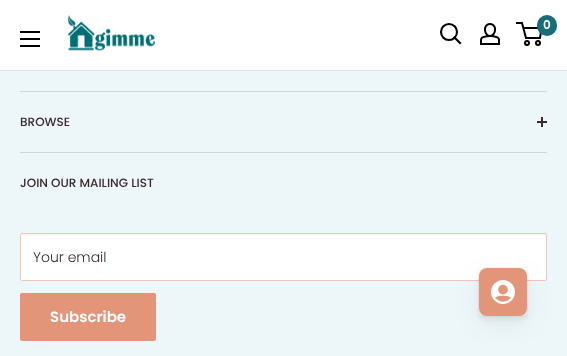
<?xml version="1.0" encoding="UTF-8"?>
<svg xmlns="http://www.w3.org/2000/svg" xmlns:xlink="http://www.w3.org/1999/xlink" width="567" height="356">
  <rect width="100%" height="100%" fill="#edf6f9" />
  <rect width="567" height="70" fill="#ffffff" />
  <rect y="70" width="567" height="1" fill="#e1e3e5" />
  <image x="67" y="15" width="88" height="36" xlink:href="image1.png" />
  <path d="M 460 43 l -5.5 -5.5" fill="none" stroke="#000000" stroke-width="2.1" stroke-linecap="square" />
  <circle cx="449" cy="32" r="8" fill="none" stroke="#000000" stroke-width="2.1" />
  <image x="480" y="23" width="20" height="22" xlink:href="image2.png" />
  <circle cx="527" cy="43" r="2" fill="none" stroke="#000000" stroke-width="2" />
  <circle cx="538" cy="43" r="2" fill="none" stroke="#000000" stroke-width="2" />
  <path d="M 523.5 28 h 18 l -1.5 10 h -14 l -4 -15 h -6" fill="none" stroke="#000000" stroke-width="2" />
  <rect x="537" y="15" width="20" height="21" rx="10" fill="#196d77" />
  <image x="20" y="31" width="20" height="16" xlink:href="image3.png" />
  <rect x="20" y="91" width="527" height="1" fill="#d1d5db" />
  <rect x="20" y="152" width="527" height="1" fill="#d1d5db" />
  <rect x="541" y="117" width="2" height="10" fill="#3a2a2f" />
  <rect x="537" y="121" width="10" height="2" fill="#3a2a2f" />
  <rect x="20" y="233" width="527" height="48" rx="2" fill="#ffffff" />
  <path d="M 22 235 h 523 c 1 0 1 0 1 1 c 0 -1 0 -2 -1 -2 h -523 l -1 1 v 1 c 0 -1 0 -1 1 -1 z" fill="#fcf5f3" />
  <rect x="20.5" y="233.5" width="526" height="47" rx="1.5" fill="none" stroke="#efc6b8" />
  <rect x="20" y="293" width="136" height="48" rx="2" fill="#e29578" />
  <rect x="479" y="276" width="48" height="48" rx="8" fill="#373f47" fill-opacity="0.08" filter="blur(12px)" />
  <rect x="479" y="272" width="48" height="48" rx="8" fill="#373f47" fill-opacity="0.08" filter="blur(2px)" />
  <rect x="478.5" y="267.5" width="49" height="49" fill="none" stroke="#373f47" stroke-opacity="0.04" />
  <rect x="479" y="268" width="48" height="48" rx="8" fill="#e29578" />
  <image x="491" y="280" width="24" height="24" xlink:href="image4.png" />
  <text x="543" y="29" style="font-family: Poppins; font-size: 12px; font-weight: 600; fill: #ffffff">0</text>
  <text x="20" y="126" style="font-family: Poppins; font-size: 12px; font-weight: 500; fill: #3a2a2f">BROWSE</text>
  <text x="20" y="187" style="font-family: Poppins; font-size: 12px; font-weight: 500; fill: #3a2a2f">JOIN OUR MAILING LIST</text>
  <text x="33" y="262" style="font-family: Poppins; font-size: 14px; font-weight: 300; fill: #3a2a2f">Your email</text>
  <text x="50" y="322" style="font-family: Poppins; font-size: 15px; font-weight: 600; fill: #ffffff">Subscribe</text>
</svg>
